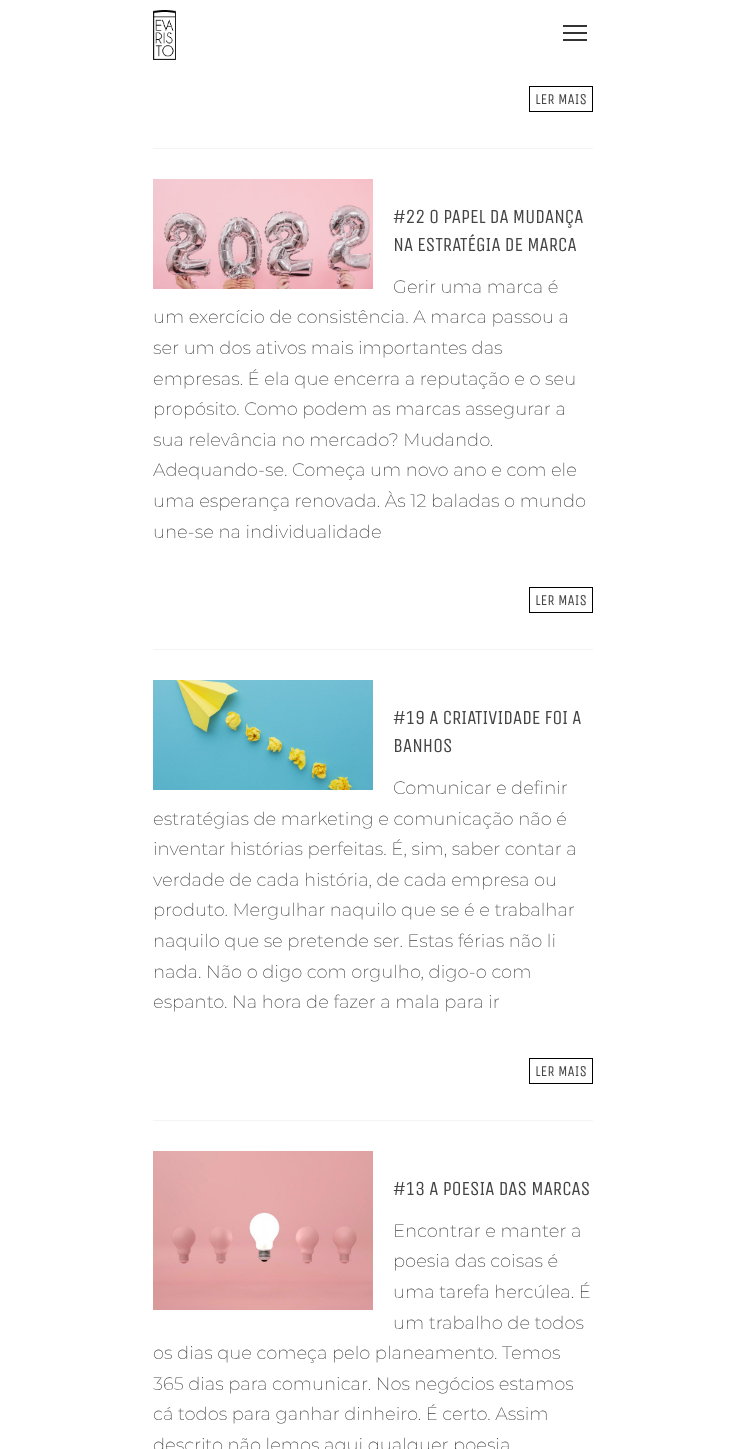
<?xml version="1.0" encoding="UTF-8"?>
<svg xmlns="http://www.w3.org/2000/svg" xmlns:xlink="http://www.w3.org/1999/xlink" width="746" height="1449">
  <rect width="100%" height="100%" fill="#ffffff" />
  <image x="153" y="10" width="23" height="50" xlink:href="image1.png" />
  <rect x="563" y="25" width="24" height="2" fill="#333333" />
  <rect x="563" y="32" width="24" height="2" fill="#333333" />
  <rect x="563" y="39" width="24" height="2" fill="#333333" />
  <rect x="153" y="148" width="440" height="1" fill="#f4f4f4" />
  <rect x="529.5" y="86.5" width="63" height="25" fill="none" stroke="#000000" />
  <rect x="153" y="649" width="440" height="1" fill="#f4f4f4" />
  <image x="153" y="179" width="220" height="110" xlink:href="image2.png" />
  <rect x="529.5" y="587.5" width="63" height="25" fill="none" stroke="#000000" />
  <rect x="153" y="1120" width="440" height="1" fill="#f4f4f4" />
  <image x="153" y="680" width="220" height="110" xlink:href="image3.png" />
  <rect x="529.5" y="1058.5" width="63" height="25" fill="none" stroke="#000000" />
  <image x="153" y="1151" width="220" height="159" xlink:href="image4.png" />
  <text x="535" y="104" style="font-family: Unica One; font-size: 15px; fill: #444444">LER MAIS</text>
  <text x="393" y="223" style="font-family: Unica One; font-size: 20px; letter-spacing: -0.4px; fill: #444444">#22 O PAPEL DA MUDANÇA</text>
  <text x="393" y="251" style="font-family: Unica One; font-size: 20px; letter-spacing: -0.4px; fill: #444444">NA ESTRATÉGIA DE MARCA</text>
  <text x="393" y="293" style="font-family: Montserrat; font-size: 18px; font-weight: 200; fill: #444444">Gerir uma marca é</text>
  <text x="153" y="323" style="font-family: Montserrat; font-size: 18px; font-weight: 200; fill: #444444">um exercício de consistência. A marca passou a</text>
  <text x="153" y="354" style="font-family: Montserrat; font-size: 18px; font-weight: 200; fill: #444444">ser um dos ativos mais importantes das</text>
  <text x="153" y="385" style="font-family: Montserrat; font-size: 18px; font-weight: 200; fill: #444444">empresas. É ela que encerra a reputação e o seu</text>
  <text x="153" y="415" style="font-family: Montserrat; font-size: 18px; font-weight: 200; fill: #444444">propósito. Como podem as marcas assegurar a</text>
  <text x="153" y="446" style="font-family: Montserrat; font-size: 18px; font-weight: 200; fill: #444444">sua relevância no mercado? Mudando.</text>
  <text x="153" y="476" style="font-family: Montserrat; font-size: 18px; font-weight: 200; fill: #444444">Adequando-se. Começa um novo ano e com ele</text>
  <text x="153" y="507" style="font-family: Montserrat; font-size: 18px; font-weight: 200; fill: #444444">uma esperança renovada. Às 12 baladas o mundo</text>
  <text x="153" y="538" style="font-family: Montserrat; font-size: 18px; font-weight: 200; fill: #444444">une-se na individualidade</text>
  <text x="535" y="605" style="font-family: Unica One; font-size: 15px; fill: #444444">LER MAIS</text>
  <text x="393" y="724" style="font-family: Unica One; font-size: 20px; letter-spacing: -0.4px; fill: #444444">#19 A CRIATIVIDADE FOI A</text>
  <text x="393" y="752" style="font-family: Unica One; font-size: 20px; letter-spacing: -0.4px; fill: #444444">BANHOS</text>
  <text x="393" y="794" style="font-family: Montserrat; font-size: 18px; font-weight: 200; fill: #444444">Comunicar e definir</text>
  <text x="153" y="825" style="font-family: Montserrat; font-size: 18px; font-weight: 200; fill: #444444">estratégias de marketing e comunicação não é</text>
  <text x="153" y="855" style="font-family: Montserrat; font-size: 18px; font-weight: 200; fill: #444444">inventar histórias perfeitas. É, sim, saber contar a</text>
  <text x="153" y="886" style="font-family: Montserrat; font-size: 18px; font-weight: 200; fill: #444444">verdade de cada história, de cada empresa ou</text>
  <text x="153" y="916" style="font-family: Montserrat; font-size: 18px; font-weight: 200; fill: #444444">produto. Mergulhar naquilo que se é e trabalhar</text>
  <text x="153" y="947" style="font-family: Montserrat; font-size: 18px; font-weight: 200; fill: #444444">naquilo que se pretende ser. Estas férias não li</text>
  <text x="153" y="978" style="font-family: Montserrat; font-size: 18px; font-weight: 200; fill: #444444">nada. Não o digo com orgulho, digo-o com</text>
  <text x="153" y="1008" style="font-family: Montserrat; font-size: 18px; font-weight: 200; fill: #444444">espanto. Na hora de fazer a mala para ir</text>
  <text x="535" y="1076" style="font-family: Unica One; font-size: 15px; fill: #444444">LER MAIS</text>
  <text x="393" y="1195" style="font-family: Unica One; font-size: 20px; letter-spacing: -0.4px; fill: #444444">#13 A POESIA DAS MARCAS</text>
  <text x="393" y="1237" style="font-family: Montserrat; font-size: 18px; font-weight: 200; fill: #444444">Encontrar e manter a</text>
  <text x="393" y="1267" style="font-family: Montserrat; font-size: 18px; font-weight: 200; fill: #444444">poesia das coisas é</text>
  <text x="393" y="1298" style="font-family: Montserrat; font-size: 18px; font-weight: 200; fill: #444444">uma tarefa hercúlea. É</text>
  <text x="393" y="1329" style="font-family: Montserrat; font-size: 18px; font-weight: 200; fill: #444444">um trabalho de todos</text>
  <text x="153" y="1359" style="font-family: Montserrat; font-size: 18px; font-weight: 200; fill: #444444">os dias que começa pelo planeamento. Temos</text>
  <text x="153" y="1390" style="font-family: Montserrat; font-size: 18px; font-weight: 200; fill: #444444">365 dias para comunicar. Nos negócios estamos</text>
  <text x="153" y="1420" style="font-family: Montserrat; font-size: 18px; font-weight: 200; fill: #444444">cá todos para ganhar dinheiro. É certo. Assim</text>
  <text x="153" y="1451" style="font-family: Montserrat; font-size: 18px; font-weight: 200; fill: #444444">descrito não lemos aqui qualquer poesia</text>
</svg>
